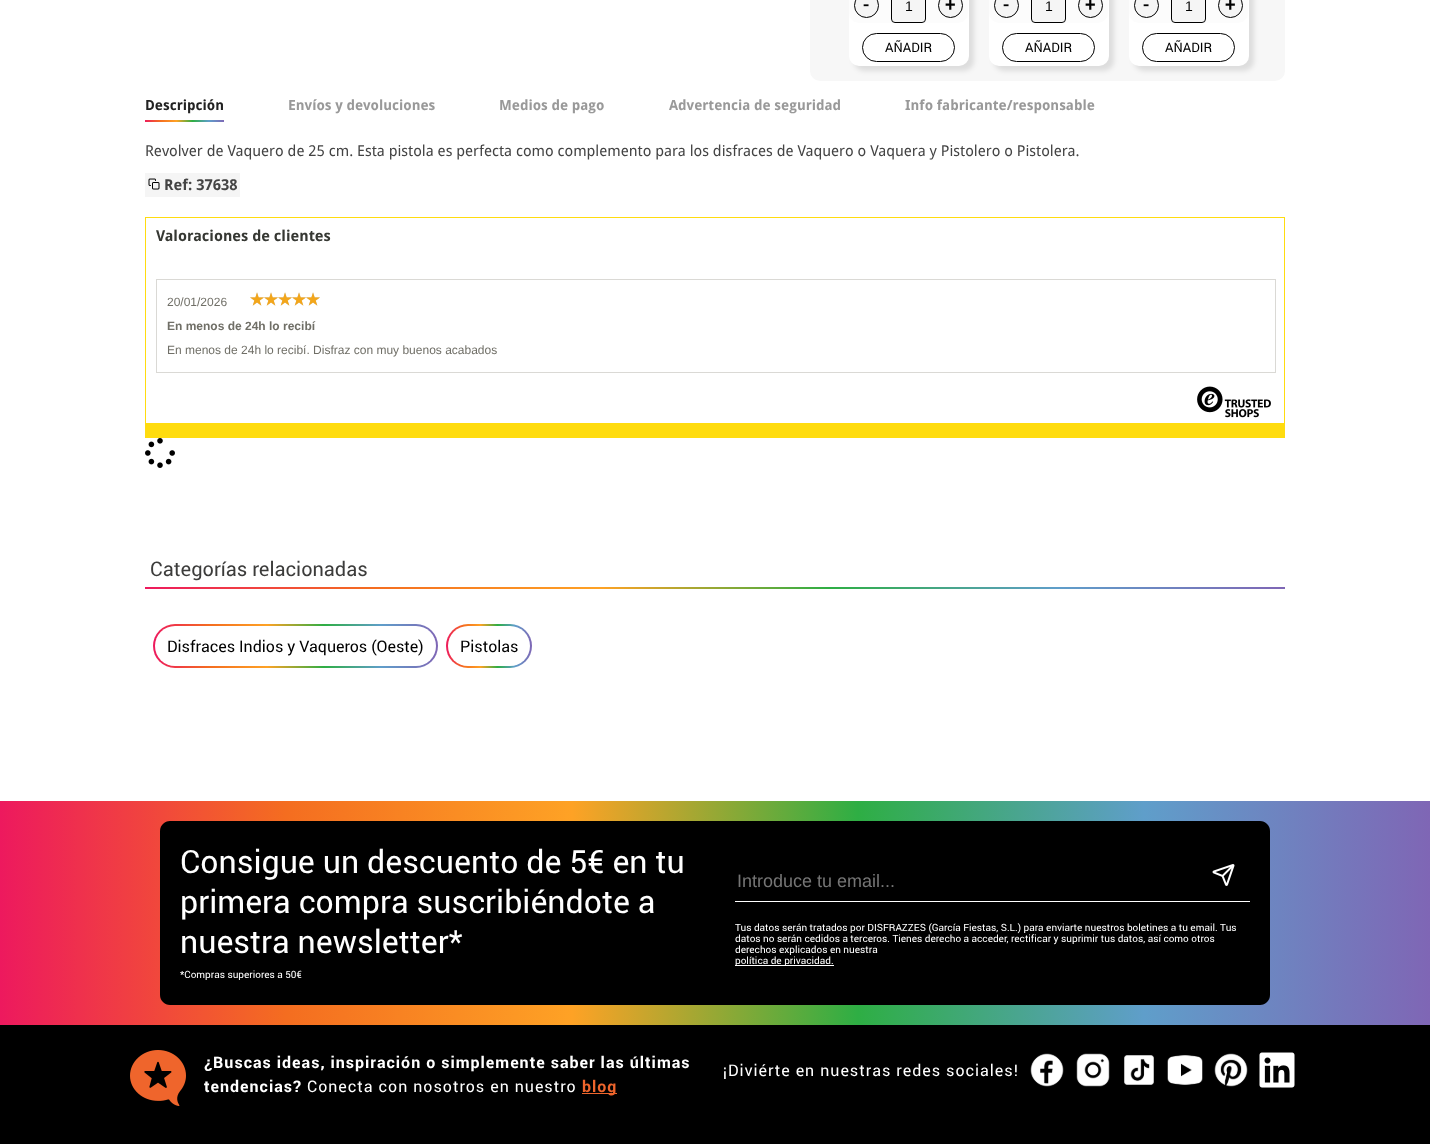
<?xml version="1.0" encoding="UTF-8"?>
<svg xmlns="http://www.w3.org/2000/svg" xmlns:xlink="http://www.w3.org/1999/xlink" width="1430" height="1144">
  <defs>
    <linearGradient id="g1" gradientUnits="userSpaceOnUse" x1="153" y1="646" x2="438" y2="646"><stop offset="0" stop-color="#ed195e" /><stop offset="0.2" stop-color="#f46d20" /><stop offset="0.4" stop-color="#fea225" /><stop offset="0.6" stop-color="#2eae44" /><stop offset="0.8" stop-color="#5f9eca" /><stop offset="1" stop-color="#7f66b5" /></linearGradient>
    <linearGradient id="g2" gradientUnits="userSpaceOnUse" x1="446" y1="646" x2="532" y2="646"><stop offset="0" stop-color="#ed195e" /><stop offset="0.2" stop-color="#f46d20" /><stop offset="0.4" stop-color="#fea225" /><stop offset="0.6" stop-color="#2eae44" /><stop offset="0.8" stop-color="#5f9eca" /><stop offset="1" stop-color="#7f66b5" /></linearGradient>
    <linearGradient id="g3" gradientUnits="userSpaceOnUse" x1="0" y1="913" x2="1430" y2="913"><stop offset="0" stop-color="#ed195e" /><stop offset="0.2" stop-color="#f46d20" /><stop offset="0.4" stop-color="#fea225" /><stop offset="0.6" stop-color="#2eae44" /><stop offset="0.8" stop-color="#5f9eca" /><stop offset="1" stop-color="#7f66b5" /></linearGradient>
  </defs>
  <rect width="100%" height="100%" fill="#ffffff" />
  <rect x="810" y="-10" width="475" height="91" rx="10" fill="#f7f7f7" />
  <rect x="854" y="-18" width="120" height="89" rx="10" fill="#000000" fill-opacity="0.1" filter="blur(2.5px)" />
  <rect x="849" y="-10" width="120" height="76" rx="10" fill="#ffffff" />
  <rect x="849" y="-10" width="119" height="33" rx="10" fill="#fcfcfc" />
  <circle cx="866.5" cy="5.5" r="12" fill="#f5f5f5" stroke="#000000" />
  <rect x="891.5" y="-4.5" width="34" height="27" rx="3.5" fill="#f5f5f5" stroke="#000000" />
  <circle cx="950.5" cy="5.5" r="12" fill="#f5f5f5" stroke="#000000" />
  <rect x="862.5" y="33.5" width="92" height="28" rx="14" fill="none" stroke="#000000" />
  <rect x="994" y="-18" width="120" height="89" rx="10" fill="#000000" fill-opacity="0.1" filter="blur(2.5px)" />
  <rect x="989" y="-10" width="120" height="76" rx="10" fill="#ffffff" />
  <rect x="989" y="-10" width="119" height="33" rx="10" fill="#fcfcfc" />
  <circle cx="1006.5" cy="5.5" r="12" fill="#f5f5f5" stroke="#000000" />
  <rect x="1031.5" y="-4.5" width="34" height="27" rx="3.5" fill="#f5f5f5" stroke="#000000" />
  <circle cx="1090.5" cy="5.5" r="12" fill="#f5f5f5" stroke="#000000" />
  <rect x="1002.5" y="33.5" width="92" height="28" rx="14" fill="none" stroke="#000000" />
  <rect x="1134" y="-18" width="120" height="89" rx="10" fill="#000000" fill-opacity="0.1" filter="blur(2.5px)" />
  <rect x="1129" y="-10" width="120" height="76" rx="10" fill="#ffffff" />
  <rect x="1129" y="-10" width="119" height="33" rx="10" fill="#fcfcfc" />
  <circle cx="1146.5" cy="5.5" r="12" fill="#f5f5f5" stroke="#000000" />
  <rect x="1171.5" y="-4.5" width="34" height="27" rx="3.5" fill="#f5f5f5" stroke="#000000" />
  <circle cx="1230.5" cy="5.5" r="12" fill="#f5f5f5" stroke="#000000" />
  <rect x="1142.5" y="33.5" width="92" height="28" rx="14" fill="none" stroke="#000000" />
  <image x="145" y="120" width="79" height="2" xlink:href="image1.png" />
  <rect x="145" y="173" width="95" height="24" fill="#f5f5f5" />
  <image x="148" y="178" width="12" height="12" xlink:href="image2.png" />
  <rect x="145" y="217" width="1140" height="1" fill="#ffdc0f" />
  <rect x="1284" y="217" width="1" height="206" fill="#ffdc0f" />
  <rect x="146" y="423" width="1139" height="15" fill="#ffdc0f" />
  <rect x="145" y="217" width="1" height="221" fill="#ffdc0f" />
  <rect x="156.5" y="279.5" width="1119" height="93" fill="none" stroke="#dad9d5" />
  <image x="250" y="292" width="14" height="14" xlink:href="image3.png" />
  <image x="264" y="292" width="14" height="14" xlink:href="image3.png" />
  <image x="278" y="292" width="14" height="14" xlink:href="image3.png" />
  <image x="292" y="292" width="14" height="14" xlink:href="image3.png" />
  <image x="306" y="292" width="14" height="14" xlink:href="image3.png" />
  <image x="250" y="292" width="14" height="14" xlink:href="image4.png" />
  <image x="264" y="292" width="14" height="14" xlink:href="image4.png" />
  <image x="278" y="292" width="14" height="14" xlink:href="image4.png" />
  <image x="292" y="292" width="14" height="14" xlink:href="image4.png" />
  <image x="306" y="292" width="14" height="14" xlink:href="image4.png" />
  <image x="1197" y="386" width="74" height="32" xlink:href="image5.png" />
  <image x="145" y="438" width="30" height="30" xlink:href="image6.png" />
  <image x="145" y="587" width="1140" height="2" xlink:href="image7.png" />
  <rect x="153" y="624" width="285" height="44" rx="22" fill="url(#g1)" />
  <rect x="155" y="626" width="281" height="40" rx="20" fill="#ffffff" />
  <rect x="446" y="624" width="86" height="44" rx="22" fill="url(#g2)" />
  <rect x="448" y="626" width="82" height="40" rx="20" fill="#ffffff" />
  <rect y="801" width="1430" height="224" fill="url(#g3)" />
  <path d="M 170 821 h 545 v 184 h -545 c -5.5 0 -10 -4.5 -10 -10 v -164 c 0 -5.5 4.5 -10 10 -10 z" fill="#000000" />
  <path d="M 715 821 h 545 c 5.5 0 10 4.5 10 10 v 164 c 0 5.5 -4.5 10 -10 10 h -545 z" fill="#000000" />
  <rect x="735" y="901" width="515" height="1" fill="#ffffff" />
  <image x="1212" y="864" width="23" height="22" xlink:href="image8.png" />
  <rect x="735" y="965" width="99" height="1" fill="#ffffff" />
  <rect y="1025" width="1430" height="119" fill="#000000" />
  <image x="130" y="1050" width="56" height="56" xlink:href="image9.png" />
  <rect x="582" y="1093" width="35" height="1" fill="#ef652c" />
  <image x="1030" y="1053" width="34" height="34" xlink:href="image10.png" />
  <image x="1076" y="1053" width="34" height="34" xlink:href="image11.png" />
  <image x="1124" y="1055" width="30" height="30" xlink:href="image12.png" />
  <image x="1167" y="1055" width="36" height="30" xlink:href="image13.png" />
  <image x="1214" y="1053" width="34" height="34" xlink:href="image14.png" />
  <image x="1259" y="1052" width="36" height="36" xlink:href="image15.png" />
  <text x="863" y="11" style="font-family: Roboto; font-size: 19px; font-weight: 500; fill: #000000">-</text>
  <text x="905" y="11" style="font-family: Liberation Sans; font-size: 14px; fill: #000000">1</text>
  <text x="945" y="11" style="font-family: Roboto; font-size: 19px; font-weight: 500; fill: #000000">+</text>
  <text x="885" y="52" style="font-family: Roboto; font-size: 13px; fill: #000000">AÑADIR</text>
  <text x="1003" y="11" style="font-family: Roboto; font-size: 19px; font-weight: 500; fill: #000000">-</text>
  <text x="1045" y="11" style="font-family: Liberation Sans; font-size: 14px; fill: #000000">1</text>
  <text x="1085" y="11" style="font-family: Roboto; font-size: 19px; font-weight: 500; fill: #000000">+</text>
  <text x="1025" y="52" style="font-family: Roboto; font-size: 13px; fill: #000000">AÑADIR</text>
  <text x="1143" y="11" style="font-family: Roboto; font-size: 19px; font-weight: 500; fill: #000000">-</text>
  <text x="1185" y="11" style="font-family: Liberation Sans; font-size: 14px; fill: #000000">1</text>
  <text x="1225" y="11" style="font-family: Roboto; font-size: 19px; font-weight: 500; fill: #000000">+</text>
  <text x="1165" y="52" style="font-family: Roboto; font-size: 13px; fill: #000000">AÑADIR</text>
  <text x="145" y="110" style="font-family: Droid Sans; font-size: 14px; font-weight: bold; fill: #222222">Descripción</text>
  <text x="288" y="110" style="font-family: Droid Sans; font-size: 14px; font-weight: bold; fill: #999999">Envíos y devoluciones</text>
  <text x="499" y="110" style="font-family: Droid Sans; font-size: 14px; font-weight: bold; fill: #999999">Medios de pago</text>
  <text x="669" y="110" style="font-family: Droid Sans; font-size: 14px; font-weight: bold; fill: #999999">Advertencia de seguridad</text>
  <text x="905" y="110" style="font-family: Droid Sans; font-size: 14px; font-weight: bold; fill: #999999">Info fabricante/responsable</text>
  <text x="145" y="156" style="font-family: Droid Sans; font-size: 15px; fill: #444444">Revolver de Vaquero de 25 cm. Esta pistola es perfecta como complemento para los disfraces de Vaquero o Vaquera y Pistolero o Pistolera.</text>
  <text x="164" y="190" style="font-family: Droid Sans; font-size: 15px; font-weight: bold; fill: #444444">Ref: 37638</text>
  <text x="156" y="241" style="font-family: Droid Sans; font-size: 15px; font-weight: bold; fill: #363833">Valoraciones de clientes</text>
  <text x="167" y="306" style="font-family: Liberation Sans; font-size: 12px; fill: #706f67">20/01/2026</text>
  <text x="167" y="330" style="font-family: Liberation Sans; font-size: 12px; font-weight: bold; fill: #706f67">En menos de 24h lo recibí</text>
  <text x="167" y="354" style="font-family: Liberation Sans; font-size: 12px; fill: #706f67">En menos de 24h lo recibí. Disfraz con muy buenos acabados</text>
  <text x="150" y="576" style="font-family: Roboto; font-size: 20px; fill: #3c3c3b">Categorías relacionadas</text>
  <text x="167" y="652" style="font-family: Roboto; font-size: 16px; fill: #000000">Disfraces Indios y Vaqueros (Oeste)</text>
  <text x="460" y="652" style="font-family: Roboto; font-size: 16px; fill: #000000">Pistolas</text>
  <text x="180" y="873" style="font-family: Roboto; font-size: 32px; fill: #ffffff">Consigue un descuento de 5€ en tu</text>
  <text x="180" y="913" style="font-family: Roboto; font-size: 32px; fill: #ffffff">primera compra suscribiéndote a</text>
  <text x="180" y="953" style="font-family: Roboto; font-size: 32px; fill: #ffffff">nuestra newsletter*</text>
  <text x="180" y="978" style="font-family: Roboto; font-size: 10px; fill: #ffffff">*Compras superiores a 50€</text>
  <text x="737" y="887" style="font-family: Liberation Sans; font-size: 18px; fill: #757575">Introduce tu email...</text>
  <text x="735" y="931" style="font-family: Roboto; font-size: 10px; fill: #ffffff">Tus datos serán tratados por DISFRAZZES (García Fiestas, S.L.) para enviarte nuestros boletines a tu email. Tus</text>
  <text x="735" y="942" style="font-family: Roboto; font-size: 10px; fill: #ffffff">datos no serán cedidos a terceros. Tienes derecho a acceder, rectificar y suprimir tus datos, así como otros</text>
  <text x="735" y="953" style="font-family: Roboto; font-size: 10px; fill: #ffffff">derechos explicados en nuestra</text>
  <text x="735" y="964" style="font-family: Roboto; font-size: 10px; fill: #ffffff">política de privacidad.</text>
  <text x="204" y="1068" style="font-family: Roboto; font-size: 16px; font-weight: bold; letter-spacing: 1px; fill: #ffffff">¿Buscas ideas, inspiración o simplemente saber las últimas</text>
  <text x="204" y="1092" style="font-family: Roboto; font-size: 16px; font-weight: bold; letter-spacing: 1px; fill: #ffffff">tendencias?</text>
  <text x="307" y="1092" style="font-family: Roboto; font-size: 16px; letter-spacing: 1px; fill: #ffffff">Conecta con nosotros en nuestro</text>
  <text x="582" y="1092" style="font-family: Roboto; font-size: 16px; font-weight: bold; letter-spacing: 1px; fill: #ef652c">blog</text>
  <text x="723" y="1076" style="font-family: Roboto; font-size: 16px; letter-spacing: 1px; fill: #ffffff">¡Diviérte en nuestras redes sociales!</text>
</svg>
